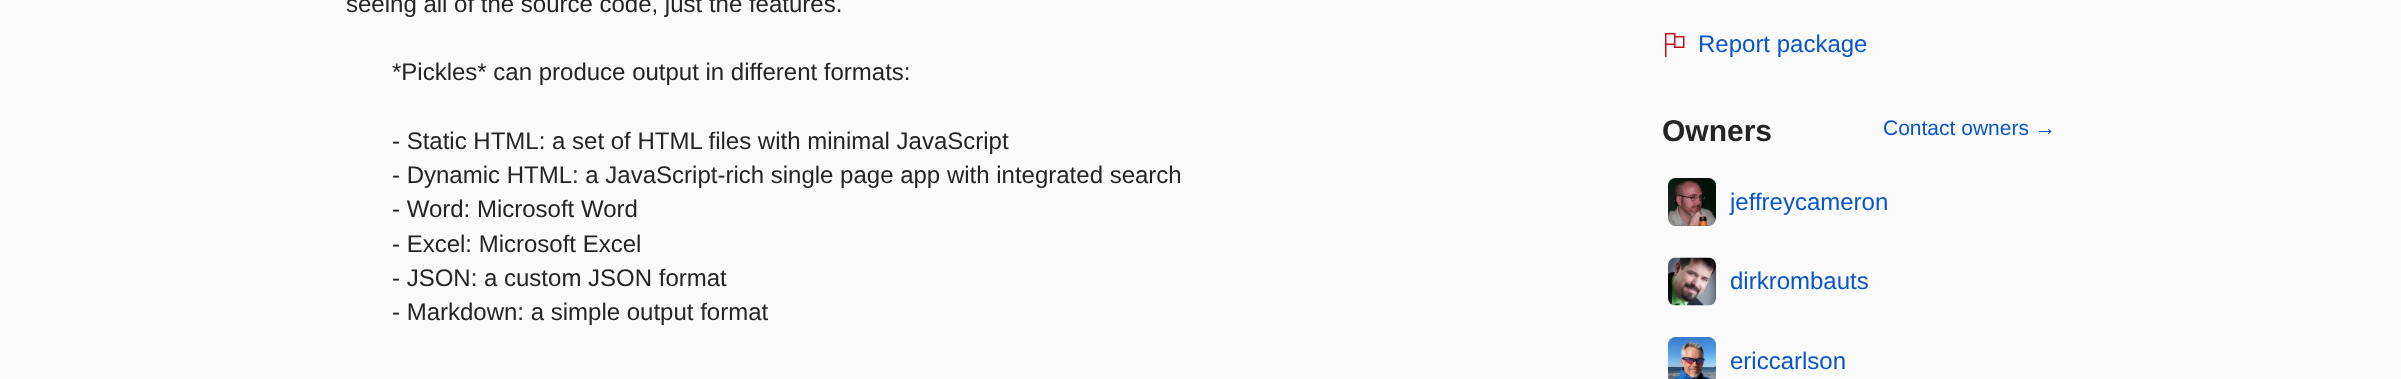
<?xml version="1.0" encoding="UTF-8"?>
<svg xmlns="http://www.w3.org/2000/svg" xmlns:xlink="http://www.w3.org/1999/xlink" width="2401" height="379">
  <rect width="100%" height="100%" fill="#fafafa" />
  <image x="1665" y="33" width="20" height="24" xlink:href="image1.png" />
  <image x="1668" y="178" width="48" height="48" xlink:href="image2.png" />
  <image x="1668" y="257" width="48" height="49" xlink:href="image3.png" />
  <image x="1668" y="337" width="48" height="42" xlink:href="image4.png" />
  <text x="346" y="12" style="font-family: Liberation Sans; font-size: 24px; fill: #242424">seeing all of the source code, just the features.</text>
  <text x="392" y="80" style="font-family: Liberation Sans; font-size: 24px; fill: #242424">*Pickles* can produce output in different formats:</text>
  <text x="392" y="149" style="font-family: Liberation Sans; font-size: 24px; fill: #242424">- Static HTML: a set of HTML files with minimal JavaScript</text>
  <text x="392" y="183" style="font-family: Liberation Sans; font-size: 24px; fill: #242424">- Dynamic HTML: a JavaScript-rich single page app with integrated search</text>
  <text x="392" y="217" style="font-family: Liberation Sans; font-size: 24px; fill: #242424">- Word: Microsoft Word</text>
  <text x="392" y="252" style="font-family: Liberation Sans; font-size: 24px; fill: #242424">- Excel: Microsoft Excel</text>
  <text x="392" y="286" style="font-family: Liberation Sans; font-size: 24px; fill: #242424">- JSON: a custom JSON format</text>
  <text x="392" y="320" style="font-family: Liberation Sans; font-size: 24px; fill: #242424">- Markdown: a simple output format</text>
  <text x="1698" y="52" style="font-family: Liberation Sans; font-size: 24px; fill: #0956cc">Report package</text>
  <text x="1662" y="141" style="font-family: Liberation Sans; font-size: 30px; font-weight: bold; fill: #242424">Owners</text>
  <text x="1883" y="135" style="font-family: Liberation Sans; font-size: 21px; fill: #0956cc">Contact owners →</text>
  <text x="1730" y="210" style="font-family: Liberation Sans; font-size: 24px; fill: #0956cc">jeffreycameron</text>
  <text x="1730" y="289" style="font-family: Liberation Sans; font-size: 24px; fill: #0956cc">dirkrombauts</text>
  <text x="1730" y="369" style="font-family: Liberation Sans; font-size: 24px; fill: #0956cc">ericcarlson</text>
</svg>
